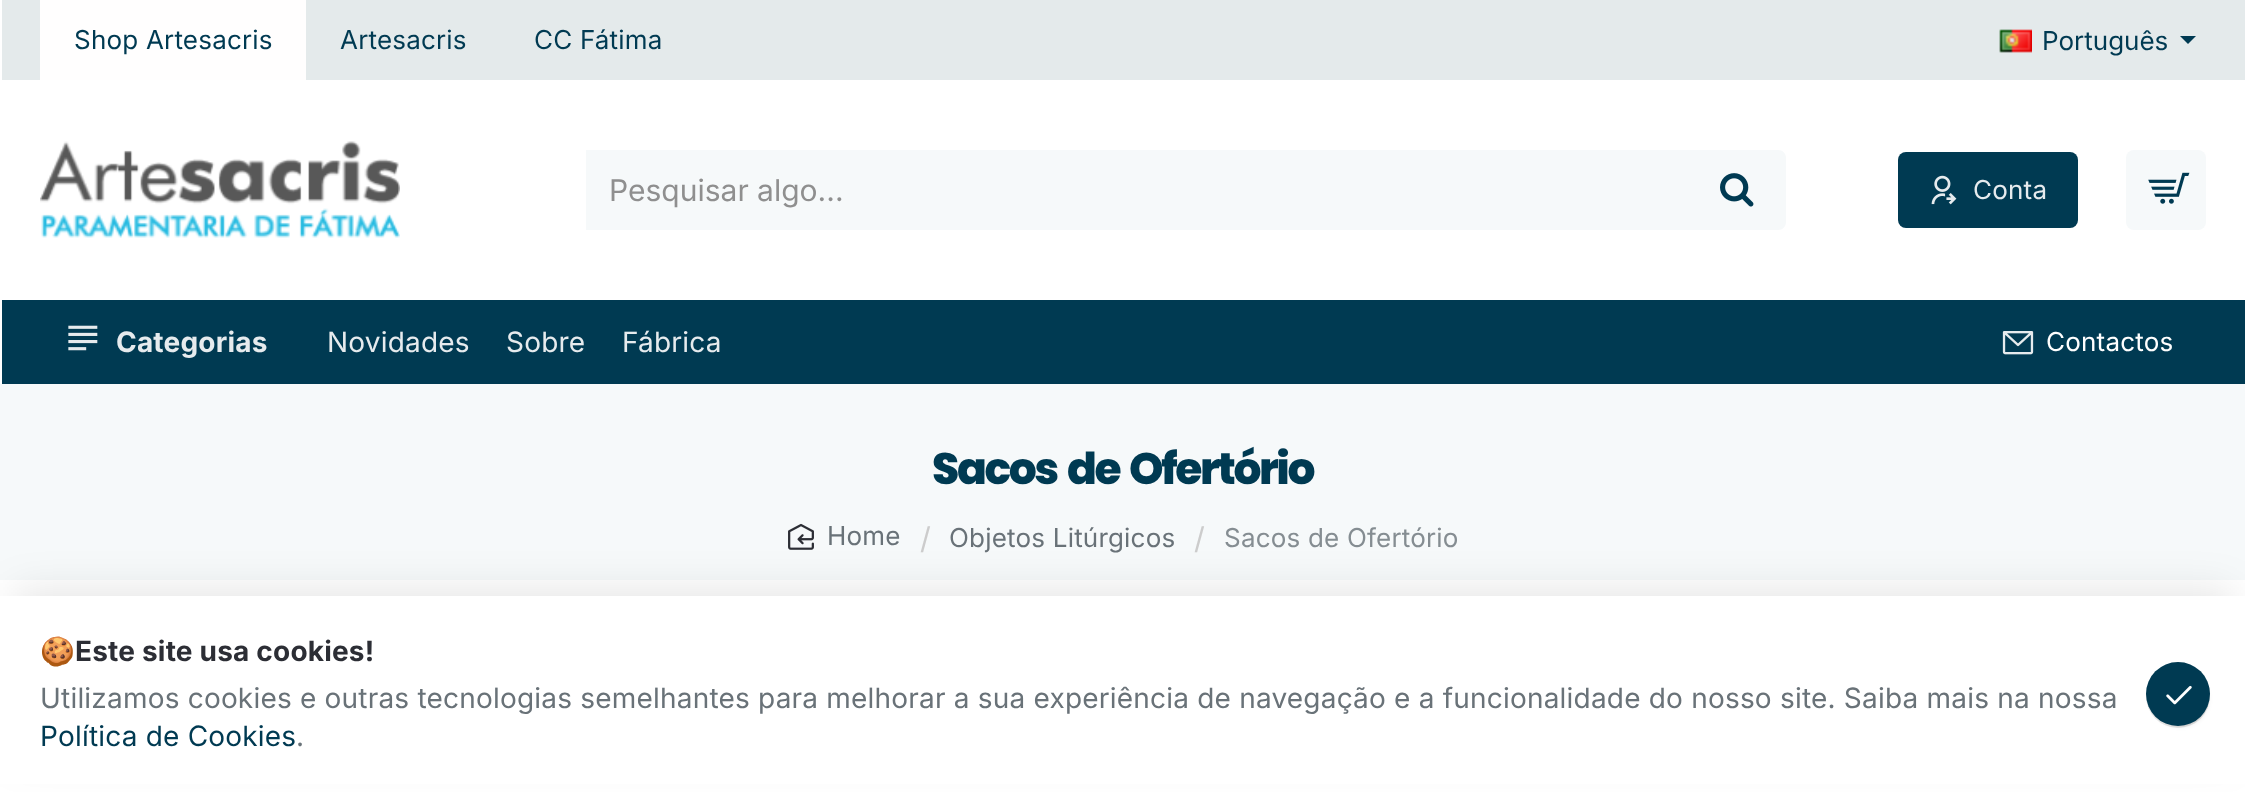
<?xml version="1.0" encoding="UTF-8"?>
<svg xmlns="http://www.w3.org/2000/svg" xmlns:xlink="http://www.w3.org/1999/xlink" width="2245" height="792">
  <rect width="100%" height="100%" fill="#ffffff" />
  <rect x="2" width="2243" height="80" fill="#e4eaeb" />
  <rect x="40" width="266" height="80" fill="#fffefe" />
  <image x="1999" y="29" width="33" height="24" xlink:href="image1.png" />
  <path d="M 2180 36 h 16 l -8 8 z" fill="#003a52" />
  <image x="40" y="141" width="360" height="97" xlink:href="image2.png" />
  <rect x="586" y="150" width="1104" height="80" fill="#f6f9fa" />
  <path d="M 1690 150 h 88 c 4.5 0 8 3.5 8 8 v 64 c 0 4.5 -3.5 8 -8 8 h -88 z" fill="#f6f9fa" />
  <image x="1720" y="173" width="34" height="34" xlink:href="image3.png" />
  <rect x="1898" y="152" width="180" height="76" rx="8" fill="#003a52" />
  <image x="1931" y="175" width="26" height="30" xlink:href="image4.png" />
  <rect x="2126" y="150" width="80" height="80" rx="8" fill="#f6f9fa" />
  <image x="2148" y="172" width="42" height="32" xlink:href="image5.png" />
  <rect x="2" y="300" width="2243" height="84" fill="#003a52" />
  <image x="68" y="325" width="30" height="26" xlink:href="image6.png" />
  <image x="2002" y="331" width="32" height="24" xlink:href="image7.png" />
  <rect y="384" width="2245" height="196" fill="#f6f9fa" />
  <image x="788" y="523" width="26" height="27" xlink:href="image8.png" />
  <rect x="14" y="590" width="2218" height="168" fill="#000000" fill-opacity="0.1" filter="blur(20px)" />
  <rect y="596" width="2245" height="188" fill="#ffffff" />
  <rect x="2154" y="672" width="54" height="54" rx="27" fill="#000000" fill-opacity="0.1" filter="blur(2.5px)" />
  <rect x="2150" y="666" width="58" height="60" rx="29" fill="#000000" fill-opacity="0.1" filter="blur(1px)" />
  <rect x="2146" y="664" width="64" height="64" rx="32" fill="#000000" fill-opacity="0.1" filter="blur(0.5px)" />
  <circle cx="2178" cy="694" r="32" fill="#003a52" />
  <image x="2166" y="685" width="26" height="20" xlink:href="image9.png" />
  <text x="74" y="49" style="font-family: Inter; font-size: 26px; letter-spacing: 0.2px; fill: #003a52">Shop Artesacris</text>
  <text x="340" y="49" style="font-family: Inter; font-size: 26px; letter-spacing: 0.2px; fill: #003a52">Artesacris</text>
  <text x="534" y="49" style="font-family: Inter; font-size: 26px; letter-spacing: 0.2px; fill: #003a52">CC Fátima</text>
  <text x="2042" y="50" style="font-family: Inter; font-size: 26px; fill: #003a52">Português</text>
  <text x="609" y="201" style="font-family: Inter; font-size: 30px; fill: #8f8f8f">Pesquisar algo...</text>
  <text x="1973" y="199" style="font-family: Inter; font-size: 26px; letter-spacing: 0.2px; fill: #e6ebee">Conta</text>
  <text x="116" y="352" style="font-family: Inter; font-size: 28px; font-weight: bold; letter-spacing: 0.2px; fill: #e6ebee">Categorias</text>
  <text x="327" y="352" style="font-family: Inter; font-size: 28px; letter-spacing: 0.2px; fill: #e6ebee">Novidades</text>
  <text x="506" y="352" style="font-family: Inter; font-size: 28px; letter-spacing: 0.2px; fill: #e6ebee">Sobre</text>
  <text x="622" y="352" style="font-family: Inter; font-size: 28px; letter-spacing: 0.2px; fill: #e6ebee">Fábrica</text>
  <text x="2046" y="351" style="font-family: Inter; font-size: 26px; letter-spacing: 0.2px; fill: #ffffff">Contactos</text>
  <text x="932" y="484" word-spacing="4" style="font-family: Poppins; font-size: 44px; font-weight: 800; letter-spacing: -2.4px; fill: #003a52">Sacos de Ofertório</text>
  <text x="827" y="545" style="font-family: Inter; font-size: 26px; letter-spacing: 0.2px; fill: #697278">Home</text>
  <text x="920" y="549" style="font-family: Inter; font-size: 30px; letter-spacing: 0.2px; fill: #cccccc">/</text>
  <text x="949" y="547" style="font-family: Inter; font-size: 26px; letter-spacing: 0.2px; fill: #697278">Objetos Litúrgicos</text>
  <text x="1194" y="549" style="font-family: Inter; font-size: 30px; letter-spacing: 0.2px; fill: #cccccc">/</text>
  <text x="1224" y="547" style="font-family: Inter; font-size: 26px; letter-spacing: 0.2px; fill: #858d92">Sacos de Ofertório</text>
  <text x="40" y="661" style="font-family: Noto Color Emoji; font-size: 28px; font-weight: bold; letter-spacing: 0.2px; fill: #2c2e35">🍪</text>
  <text x="75" y="661" style="font-family: Inter; font-size: 28px; font-weight: bold; letter-spacing: 0.2px; fill: #2c2e35">Este site usa cookies!</text>
  <text x="40" y="708" style="font-family: Inter; font-size: 28px; letter-spacing: 0.2px; fill: #697278">Utilizamos cookies e outras tecnologias semelhantes para melhorar a sua experiência de navegação e a funcionalidade do nosso site. Saiba mais na nossa</text>
  <text x="40" y="746" style="font-family: Inter; font-size: 28px; letter-spacing: 0.2px; fill: #003a52">Política de Cookies</text>
  <text x="296" y="746" style="font-family: Inter; font-size: 28px; letter-spacing: 0.2px; fill: #697278">.</text>
</svg>
